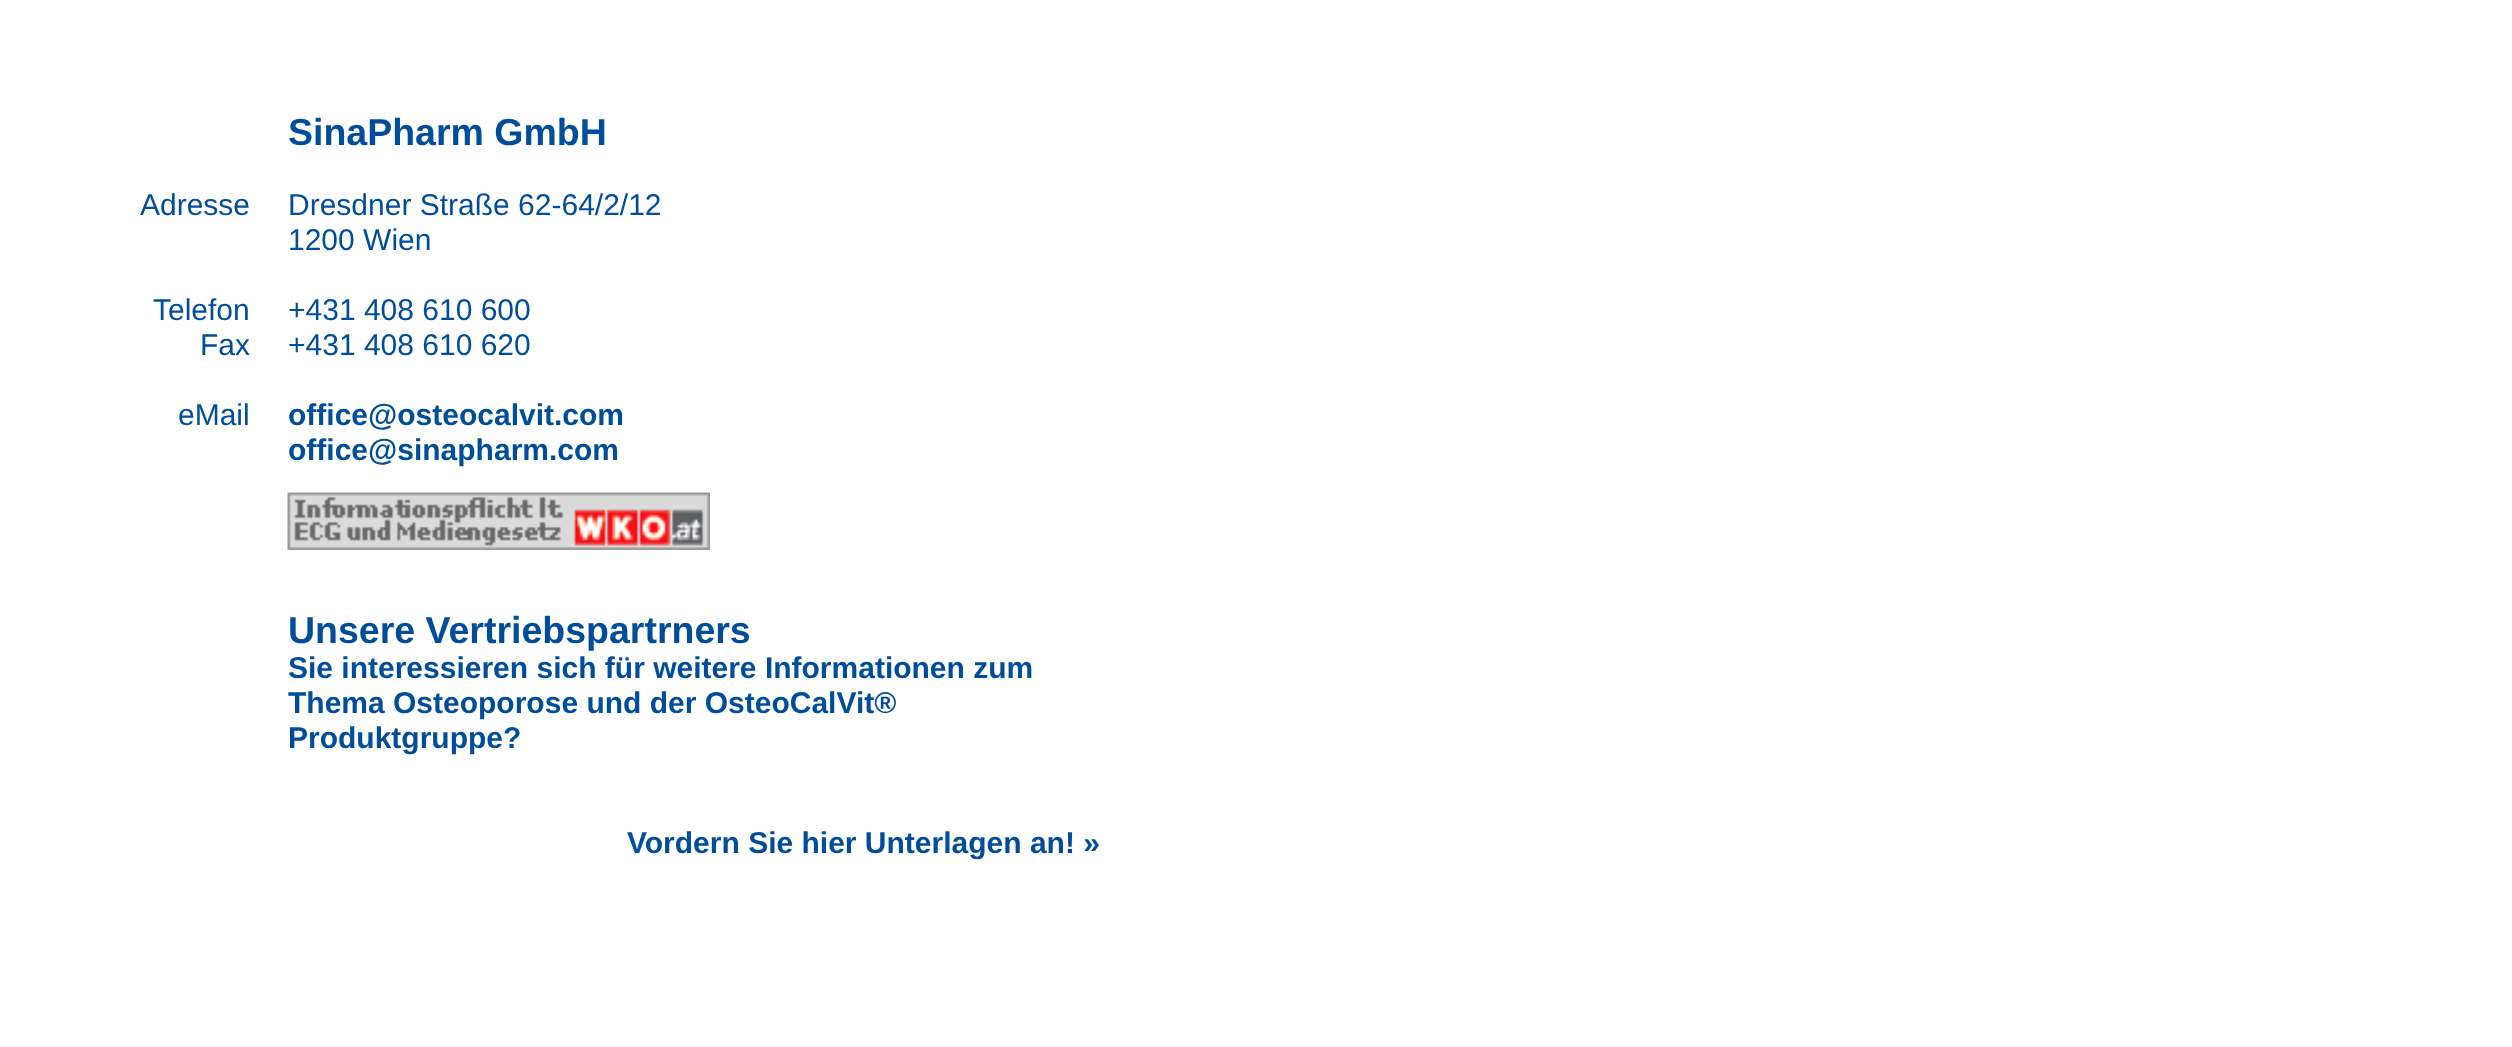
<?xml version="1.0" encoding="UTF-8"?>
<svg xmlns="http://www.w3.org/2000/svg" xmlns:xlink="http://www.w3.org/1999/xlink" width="2512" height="1047">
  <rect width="100%" height="100%" fill="#ffffff" />
  <image x="287" y="492" width="423" height="58" xlink:href="image1.png" />
  <text x="288" y="145" style="font-family: Liberation Sans; font-size: 37.5px; font-weight: bold; fill: #004e9b">SinaPharm GmbH</text>
  <text x="140" y="215" style="font-family: Liberation Sans; font-size: 30px; fill: #004e9b">Adresse</text>
  <text x="288" y="215" style="font-family: Liberation Sans; font-size: 30px; fill: #004e9b">Dresdner Straße 62-64/2/12</text>
  <text x="288" y="250" style="font-family: Liberation Sans; font-size: 30px; fill: #004e9b">1200 Wien</text>
  <text x="153" y="320" style="font-family: Liberation Sans; font-size: 30px; fill: #004e9b">Telefon</text>
  <text x="288" y="320" style="font-family: Liberation Sans; font-size: 30px; fill: #004e9b">+431 408 610 600</text>
  <text x="200" y="355" style="font-family: Liberation Sans; font-size: 30px; fill: #004e9b">Fax</text>
  <text x="288" y="355" style="font-family: Liberation Sans; font-size: 30px; fill: #004e9b">+431 408 610 620</text>
  <text x="178" y="425" style="font-family: Liberation Sans; font-size: 30px; fill: #004e9b">eMail</text>
  <text x="288" y="425" style="font-family: Liberation Sans; font-size: 30px; font-weight: bold; fill: #004e9b">office@osteocalvit.com</text>
  <text x="288" y="460" style="font-family: Liberation Sans; font-size: 30px; font-weight: bold; fill: #004e9b">office@sinapharm.com</text>
  <text x="288" y="643" style="font-family: Liberation Sans; font-size: 37.5px; font-weight: bold; fill: #004e9b">Unsere Vertriebspartrners</text>
  <text x="288" y="678" style="font-family: Liberation Sans; font-size: 30px; font-weight: bold; fill: #004e9b">Sie interessieren sich für weitere Informationen zum</text>
  <text x="288" y="713" style="font-family: Liberation Sans; font-size: 30px; font-weight: bold; fill: #004e9b">Thema Osteoporose und der OsteoCalVit®</text>
  <text x="288" y="748" style="font-family: Liberation Sans; font-size: 30px; font-weight: bold; fill: #004e9b">Produktgruppe?</text>
  <text x="627" y="853" style="font-family: Liberation Sans; font-size: 30px; font-weight: bold; fill: #004e9b">Vordern Sie hier Unterlagen an! »</text>
</svg>
